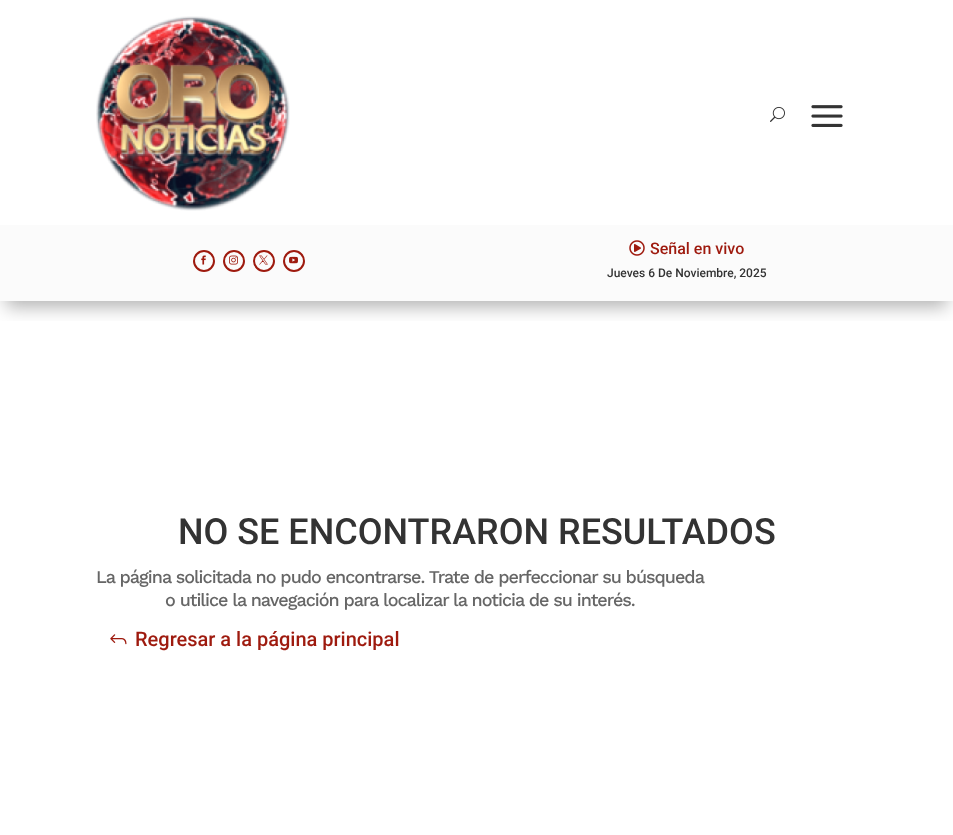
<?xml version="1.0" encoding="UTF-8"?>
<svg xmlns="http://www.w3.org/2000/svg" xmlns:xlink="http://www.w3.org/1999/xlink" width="953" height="835">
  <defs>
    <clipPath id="clip1"><rect x="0" y="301" width="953" height="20" /></clipPath>
  </defs>
  <rect width="100%" height="100%" fill="#ffffff" />
  <g clip-path="url(#clip1)">
    <rect x="6" y="18" width="941" height="289" fill="#000000" fill-opacity="0.3" filter="blur(9px)" />
  </g>
  <image x="96" y="16" width="194" height="195" xlink:href="image1.png" />
  <image x="770" y="106" width="15" height="16" xlink:href="image2.png" />
  <image x="811" y="105" width="32" height="22" xlink:href="image3.png" />
  <rect y="225" width="953" height="76" fill="#fbfbfb" />
  <circle cx="204" cy="261" r="10" fill="none" stroke="#9e1a0e" stroke-width="2" />
  <image x="201" y="255" width="5" height="10" xlink:href="image4.png" />
  <circle cx="234" cy="261" r="10" fill="none" stroke="#9e1a0e" stroke-width="2" />
  <image x="229" y="255" width="9" height="10" xlink:href="image5.png" />
  <circle cx="264" cy="261" r="10" fill="none" stroke="#9e1a0e" stroke-width="2" />
  <image x="259" y="255" width="9" height="10" xlink:href="image6.png" />
  <circle cx="294" cy="261" r="10" fill="none" stroke="#9e1a0e" stroke-width="2" />
  <image x="289" y="256" width="9" height="8" xlink:href="image7.png" />
  <image x="629" y="240" width="16" height="16" xlink:href="image8.png" />
  <image x="110" y="634" width="17" height="11" xlink:href="image9.png" />
  <text x="650" y="254" style="font-family: Roboto; font-size: 16px; font-weight: 500; fill: #9e1a0e">Señal en vivo</text>
  <text x="607" y="277" style="font-family: Roboto; font-size: 12px; font-weight: 500; fill: #333333">Jueves 6 De Noviembre, 2025</text>
  <text x="178" y="544" style="font-family: Roboto; font-size: 36px; font-weight: 500; fill: #333333">NO SE ENCONTRARON RESULTADOS</text>
  <text x="96" y="583" style="font-family: Work Sans; font-size: 18px; font-weight: 500; letter-spacing: -1px; fill: #666666">La página solicitada no pudo encontrarse. Trate de perfeccionar su búsqueda</text>
  <text x="165" y="606" style="font-family: Work Sans; font-size: 18px; font-weight: 500; letter-spacing: -1px; fill: #666666">o utilice la navegación para localizar la noticia de su interés.</text>
  <text x="135" y="646" style="font-family: Roboto; font-size: 20px; font-weight: 500; fill: #9e1a0e">Regresar a la página principal</text>
</svg>
